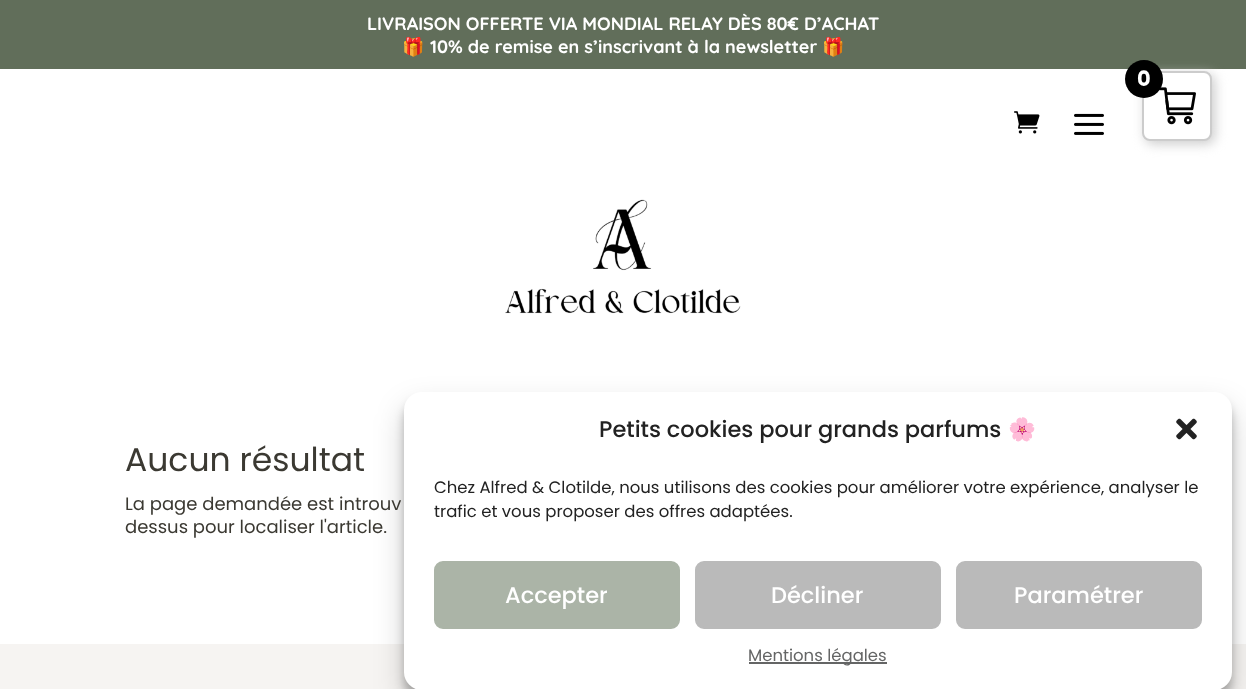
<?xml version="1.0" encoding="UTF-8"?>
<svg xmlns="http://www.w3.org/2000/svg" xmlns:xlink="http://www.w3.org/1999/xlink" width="1246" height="689">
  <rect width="100%" height="100%" fill="#ffffff" />
  <rect width="1246" height="69" fill="#616e5a" />
  <image x="1014" y="111" width="26" height="23" xlink:href="image1.png" />
  <image x="1074" y="113" width="30" height="22" xlink:href="image2.png" />
  <image x="505" y="199" width="236" height="115" xlink:href="image3.png" />
  <rect y="644" width="1246" height="45" fill="#f6f4f2" />
  <rect x="1145" y="74" width="70" height="70" rx="8" fill="#cccccc" filter="blur(6px)" />
  <rect x="1143" y="72" width="68" height="68" rx="7" fill="#ffffff" stroke="#cccccc" stroke-width="2" />
  <circle cx="1144" cy="79" r="19" fill="#000000" />
  <image x="1159" y="87" width="37" height="38" xlink:href="image4.png" />
  <rect x="404" y="401" width="828" height="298" rx="18" fill="#000000" fill-opacity="0.23" filter="blur(4.5px)" />
  <rect x="404" y="407" width="828" height="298" rx="18" fill="#000000" fill-opacity="0.19" filter="blur(15px)" />
  <rect x="404" y="392" width="828" height="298" rx="18" fill="#ffffff" />
  <image x="1176" y="418" width="21" height="22" xlink:href="image5.png" />
  <rect x="435" y="562" width="244" height="66" rx="8" fill="#abb4a7" stroke="#abb4a7" stroke-width="2" />
  <rect x="696" y="562" width="244" height="66" rx="8" fill="#bababa" stroke="#bababa" stroke-width="2" />
  <rect x="957" y="562" width="244" height="66" rx="8" fill="#bababa" stroke="#bababa" stroke-width="2" />
  <rect x="749" y="662" width="138" height="2" fill="#646565" />
  <text x="367" y="30" style="font-family: Quicksand; font-size: 18px; font-weight: 300; fill: #ffffff">LIVRAISON OFFERTE VIA MONDIAL RELAY DÈS 80€ D’ACHAT</text>
  <text x="402" y="53" style="font-family: Noto Color Emoji; font-size: 18px; font-weight: bold; fill: #ffffff">🎁</text>
  <text x="430" y="53" style="font-family: Quicksand; font-size: 18px; font-weight: 300; fill: #ffffff">10% de remise en s’inscrivant à la newsletter</text>
  <text x="822" y="53" style="font-family: Noto Color Emoji; font-size: 18px; font-weight: bold; fill: #ffffff">🎁</text>
  <text x="125" y="471" style="font-family: Poppins; font-size: 33px; fill: #3b3932">Aucun résultat</text>
  <text x="125" y="510" style="font-family: Poppins; font-size: 18px; fill: #3b3932">La page demandée est introuv</text>
  <text x="125" y="533" style="font-family: Poppins; font-size: 18px; fill: #3b3932">dessus pour localiser l'article.</text>
  <text x="1137" y="86" style="font-family: Poppins; font-size: 21px; font-weight: bold; fill: #ffffff">0</text>
  <text x="599" y="437" style="font-family: Poppins; font-size: 22.5px; font-weight: 500; fill: #222222">Petits cookies pour grands parfums</text>
  <text x="1008" y="437" style="font-family: Noto Color Emoji; font-size: 22.5px; fill: #222222">🌸</text>
  <text x="434" y="493" style="font-family: Poppins; font-size: 16.5px; fill: #222222">Chez Alfred &amp; Clotilde, nous utilisons des cookies pour améliorer votre expérience, analyser le</text>
  <text x="434" y="517" style="font-family: Poppins; font-size: 16.5px; fill: #222222">trafic et vous proposer des offres adaptées.</text>
  <text x="505" y="603" style="font-family: Poppins; font-size: 22.5px; font-weight: 500; fill: #ffffff">Accepter</text>
  <text x="771" y="603" style="font-family: Poppins; font-size: 22.5px; font-weight: 500; fill: #ffffff">Décliner</text>
  <text x="1014" y="603" style="font-family: Poppins; font-size: 22.5px; font-weight: 500; fill: #ffffff">Paramétrer</text>
  <text x="748" y="661" style="font-family: Poppins; font-size: 16.5px; fill: #646565">Mentions légales</text>
</svg>
